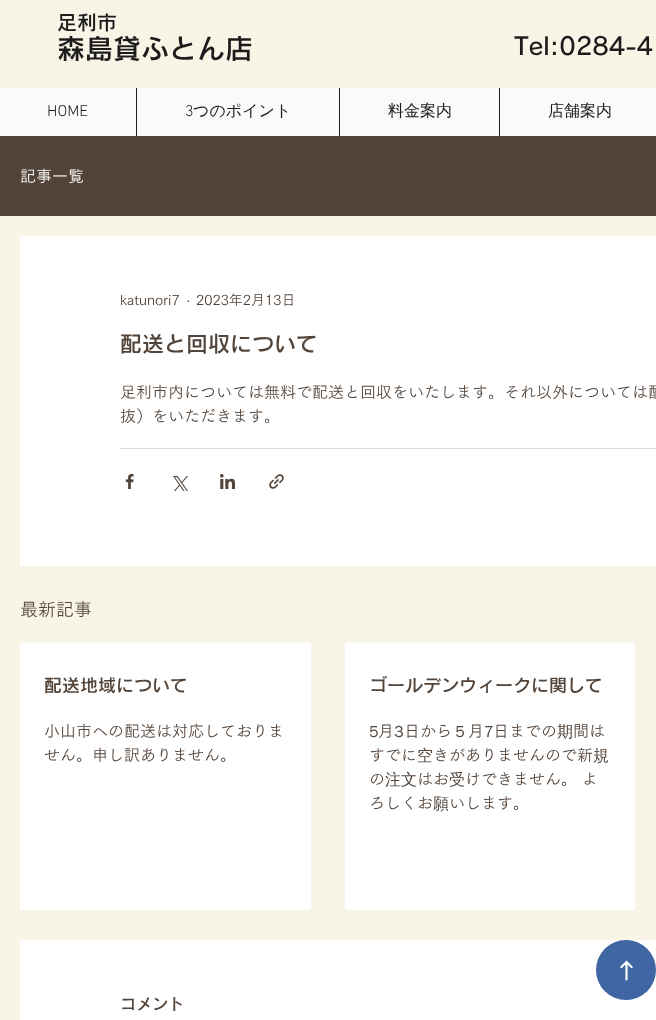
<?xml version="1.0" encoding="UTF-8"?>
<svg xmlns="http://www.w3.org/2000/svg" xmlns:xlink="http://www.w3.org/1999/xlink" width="656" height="1020">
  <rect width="100%" height="100%" fill="#f8f4e6" />
  <rect y="88" width="656" height="48" fill="#fafafa" />
  <rect x="136" y="88" width="1" height="48" fill="#1c1c1c" />
  <rect x="339" y="88" width="1" height="48" fill="#1c1c1c" />
  <rect x="499" y="88" width="1" height="48" fill="#1c1c1c" />
  <rect y="136" width="656" height="80" fill="#534439" />
  <rect x="20" y="236" width="636" height="330" fill="#ffffff" />
  <rect x="120" y="448" width="536" height="1" fill="#dddad7" />
  <image x="125" y="474" width="9" height="15" xlink:href="image1.png" />
  <image x="173" y="476" width="15" height="15" xlink:href="image2.png" />
  <image x="220" y="474" width="15" height="15" xlink:href="image3.png" />
  <image x="269" y="474" width="15" height="15" xlink:href="image4.png" />
  <rect x="20" y="643" width="291" height="267" fill="#ffffff" />
  <rect x="345" y="643" width="290" height="267" fill="#ffffff" />
  <rect x="20" y="940" width="636" height="80" fill="#ffffff" />
  <circle cx="626" cy="970" r="30" fill="#3f66a2" />
  <image x="620" y="960" width="13" height="21" xlink:href="image5.png" />
  <text x="57" y="30" style="font-family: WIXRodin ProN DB; font-size: 20px; font-weight: 600; fill: #1c1c1c">足利市</text>
  <text x="57" y="59" style="font-family: WIXRodin ProN DB; font-size: 28px; font-weight: 600; fill: #1c1c1c">森島貸ふとん店</text>
  <text x="514" y="55" style="font-family: WIXRodin ProN DB; font-size: 24px; font-weight: 600; fill: #1c1c1c">Tel:0284-4</text>
  <text x="47" y="116" style="font-family: 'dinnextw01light'; font-size: 16px; font-weight: 300; fill: #1c1c1c">HOME</text>
  <text x="185" y="116" style="font-family: 'dinnextw01light'; font-size: 16px; font-weight: 300; fill: #1c1c1c">3</text>
  <text x="193" y="116" style="font-family: WenQuanYi Zen Hei; font-size: 16px; font-weight: 500; fill: #1c1c1c">つのポイント</text>
  <text x="388" y="116" style="font-family: WenQuanYi Zen Hei; font-size: 16px; font-weight: 500; fill: #1c1c1c">料金案内</text>
  <text x="548" y="116" style="font-family: WenQuanYi Zen Hei; font-size: 16px; font-weight: 500; fill: #1c1c1c">店舗案内</text>
  <text x="20" y="182" style="font-family: 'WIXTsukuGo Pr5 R'; font-size: 16px; fill: #ffffff">記事一覧</text>
  <text x="120" y="305" style="font-family: 'WIXTsukuGo Pr5 R'; font-size: 14px; fill: #534439">katunori7</text>
  <text x="186" y="305" style="font-family: Liberation Sans; font-size: 14px; fill: #534439">·</text>
  <text x="196" y="305" style="font-family: 'WIXTsukuGo Pr5 R'; font-size: 14px; fill: #534439">2023年2月13日</text>
  <text x="120" y="352" style="font-family: WIXRodin ProN DB; font-size: 22px; font-weight: 600; fill: #534439">配送と回収について</text>
  <text x="120" y="398" style="font-family: 'WIXTsukuGo Pr5 R'; font-size: 16px; fill: #534439">足利市内については無料で配送と回収をいたします。それ以外については配</text>
  <text x="120" y="422" style="font-family: 'WIXTsukuGo Pr5 R'; font-size: 16px; fill: #534439">抜）をいただきます。</text>
  <text x="20" y="616" style="font-family: 'WIXTsukuGo Pr5 R'; font-size: 18px; fill: #534439">最新記事</text>
  <text x="44" y="692" style="font-family: WIXRodin ProN DB; font-size: 18px; font-weight: 600; fill: #534439">配送地域について</text>
  <text x="44" y="737" style="font-family: 'WIXTsukuGo Pr5 R'; font-size: 16px; fill: #534439">小山市への配送は対応しておりま</text>
  <text x="44" y="761" style="font-family: 'WIXTsukuGo Pr5 R'; font-size: 16px; fill: #534439">せん。申し訳ありません。</text>
  <text x="369" y="692" style="font-family: WIXRodin ProN DB; font-size: 18px; font-weight: 600; fill: #534439">ゴールデンウィークに関して</text>
  <text x="369" y="737" style="font-family: WenQuanYi Zen Hei; font-size: 16px; font-weight: 500; fill: #534439">5</text>
  <text x="378" y="737" style="font-family: 'WIXTsukuGo Pr5 R'; font-size: 16px; fill: #534439">月</text>
  <text x="394" y="737" style="font-family: WenQuanYi Zen Hei; font-size: 16px; font-weight: 500; fill: #534439">3</text>
  <text x="404" y="737" style="font-family: 'WIXTsukuGo Pr5 R'; font-size: 16px; fill: #534439">日から</text>
  <text x="452" y="737" style="font-family: WenQuanYi Zen Hei; font-size: 16px; font-weight: 500; fill: #534439">５</text>
  <text x="468" y="737" style="font-family: 'WIXTsukuGo Pr5 R'; font-size: 16px; fill: #534439">月</text>
  <text x="484" y="737" style="font-family: WenQuanYi Zen Hei; font-size: 16px; font-weight: 500; fill: #534439">7</text>
  <text x="493" y="737" style="font-family: 'WIXTsukuGo Pr5 R'; font-size: 16px; fill: #534439">日までの</text>
  <text x="557" y="737" style="font-family: WenQuanYi Zen Hei; font-size: 16px; font-weight: 500; fill: #534439">期</text>
  <text x="573" y="737" style="font-family: 'WIXTsukuGo Pr5 R'; font-size: 16px; fill: #534439">間は</text>
  <text x="369" y="761" style="font-family: 'WIXTsukuGo Pr5 R'; font-size: 16px; fill: #534439">すでに</text>
  <text x="417" y="761" style="font-family: WenQuanYi Zen Hei; font-size: 16px; font-weight: 500; fill: #534439">空</text>
  <text x="433" y="761" style="font-family: 'WIXTsukuGo Pr5 R'; font-size: 16px; fill: #534439">きがありませんので新</text>
  <text x="593" y="761" style="font-family: WenQuanYi Zen Hei; font-size: 16px; font-weight: 500; fill: #534439">規</text>
  <text x="369" y="785" style="font-family: 'WIXTsukuGo Pr5 R'; font-size: 16px; fill: #534439">の</text>
  <text x="385" y="785" style="font-family: WenQuanYi Zen Hei; font-size: 16px; font-weight: 500; fill: #534439">注文</text>
  <text x="417" y="785" style="font-family: 'WIXTsukuGo Pr5 R'; font-size: 16px; fill: #534439">はお</text>
  <text x="449" y="785" style="font-family: WenQuanYi Zen Hei; font-size: 16px; font-weight: 500; fill: #534439">受</text>
  <text x="465" y="785" style="font-family: 'WIXTsukuGo Pr5 R'; font-size: 16px; fill: #534439">けできません。 よ</text>
  <text x="369" y="809" style="font-family: 'WIXTsukuGo Pr5 R'; font-size: 16px; fill: #534439">ろしくお</text>
  <text x="433" y="809" style="font-family: WenQuanYi Zen Hei; font-size: 16px; font-weight: 500; fill: #534439">願</text>
  <text x="449" y="809" style="font-family: 'WIXTsukuGo Pr5 R'; font-size: 16px; fill: #534439">いします。</text>
  <text x="120" y="1010" style="font-family: WIXRodin ProN DB; font-size: 16px; font-weight: 600; fill: #534439">コメント</text>
</svg>
